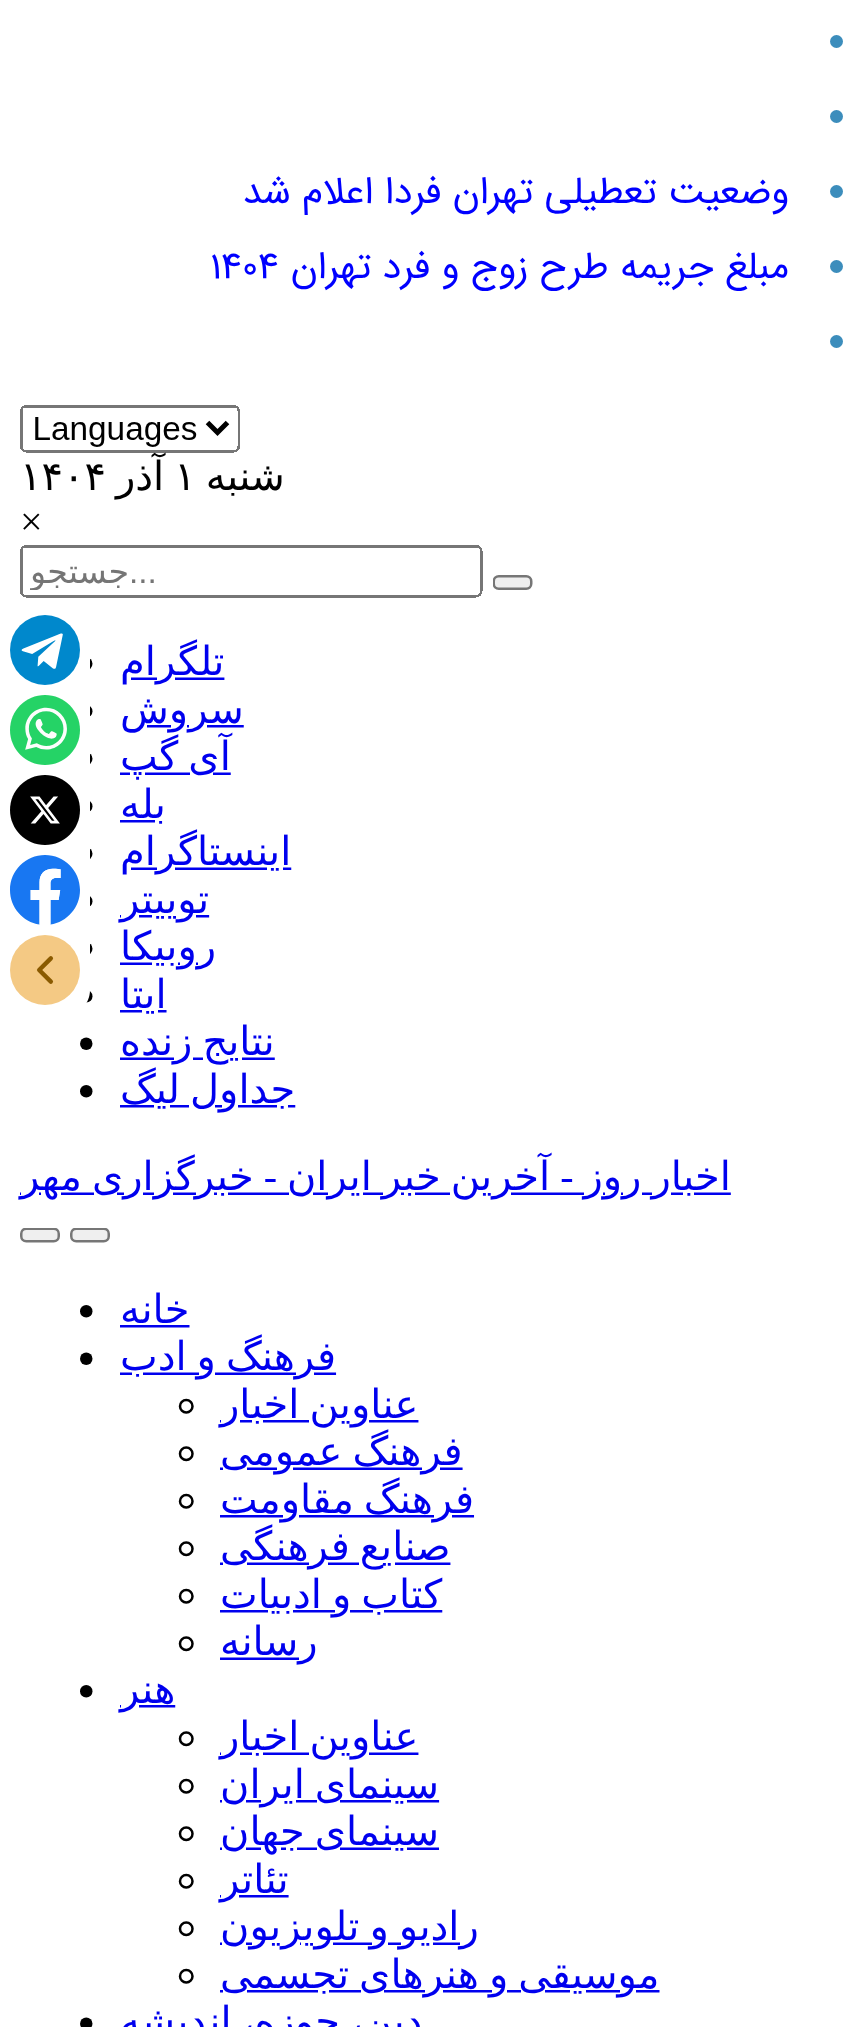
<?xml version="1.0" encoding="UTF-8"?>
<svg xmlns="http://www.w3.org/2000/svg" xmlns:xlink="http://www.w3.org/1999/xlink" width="849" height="2027">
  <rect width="100%" height="100%" fill="#ffffff" />
  <circle cx="836.5" cy="41.5" r="6.5" fill="#3c8dbc" />
  <circle cx="836.5" cy="116.5" r="6.5" fill="#3c8dbc" />
  <circle cx="836.5" cy="191.5" r="6.5" fill="#3c8dbc" />
  <circle cx="836.5" cy="266.5" r="6.5" fill="#3c8dbc" />
  <circle cx="836.5" cy="341.5" r="6.5" fill="#3c8dbc" />
  <image x="18" y="405" width="713" height="1622" xlink:href="image1.png" />
  <path d="M 0 605 h 65 c 14 0 25 11 25 25 v 360 c 0 14 -11 25 -25 25 h -65 z" fill="#ffffff" />
  <image x="10" y="615" width="70" height="70" xlink:href="image2.png" />
  <image x="10" y="695" width="70" height="70" xlink:href="image3.png" />
  <image x="10" y="775" width="70" height="70" xlink:href="image4.png" />
  <image x="10" y="855" width="70" height="70" xlink:href="image5.png" />
  <image x="10" y="935" width="70" height="70" xlink:href="image6.png" />
  <text x="789" y="203" style="font-family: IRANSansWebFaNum; font-size: 38px; direction: rtl; fill: #0000ff">وضعیت تعطیلی تهران فردا اعلام شد</text>
  <text x="789" y="278" style="font-family: IRANSansWebFaNum; font-size: 38px; direction: rtl; fill: #0000ff">مبلغ جریمه طرح زوج و فرد تهران</text>
  <text x="210" y="278" style="font-family: IRANSansWebFaNum; font-size: 38px; fill: #0000ff">۱۴۰۴</text>
</svg>
